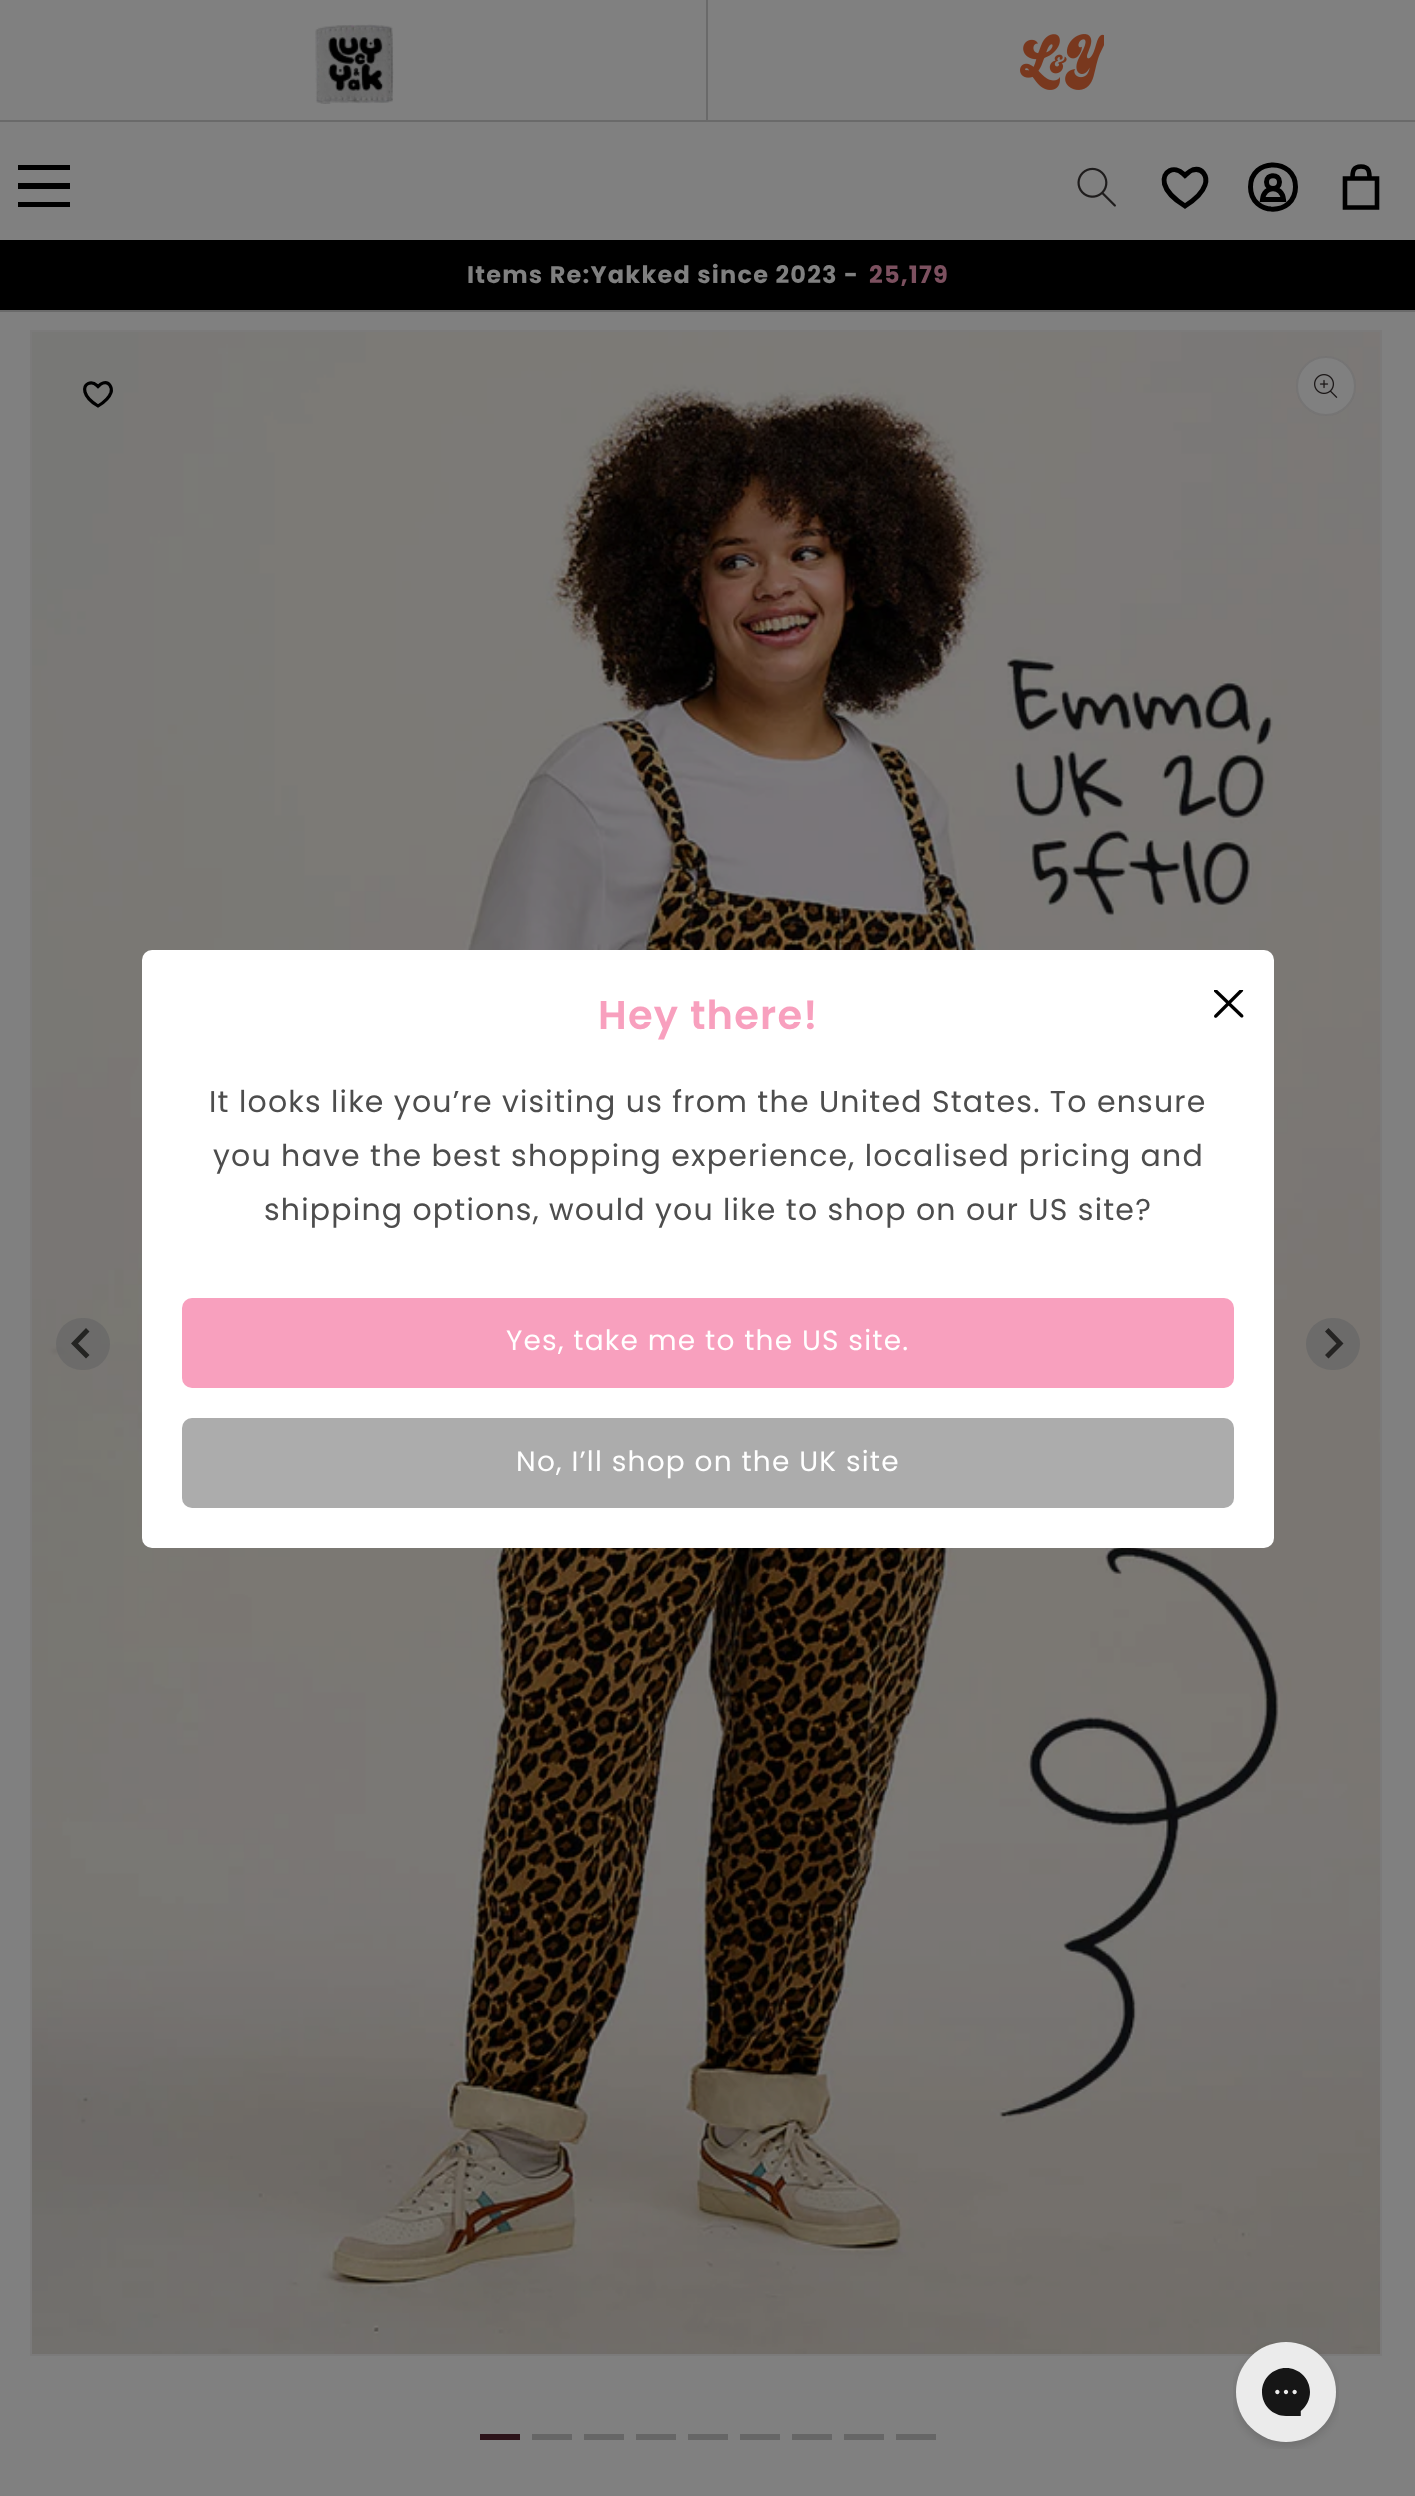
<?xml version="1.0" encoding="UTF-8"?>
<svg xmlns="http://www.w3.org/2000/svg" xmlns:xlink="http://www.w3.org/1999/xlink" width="1415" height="2496">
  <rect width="100%" height="100%" fill="#808080" />
  <rect y="120" width="1415" height="2" fill="#6a6a6a" />
  <rect x="706" width="2" height="120" fill="#6a6a6a" />
  <image x="315" y="24" width="79" height="80" xlink:href="image1.png" />
  <image x="1020" y="34" width="84" height="56" xlink:href="image2.png" />
  <rect y="310" width="1415" height="2" fill="#6a6a6a" />
  <path d="M 70 170 h -52 v -5 h 52 z m 0 19 h -52 v -6 h 52 z m 0 18 h -52 v -5 h 52 z" fill="#000000" fill-rule="evenodd" />
  <image x="1077" y="167" width="39" height="40" xlink:href="image3.png" />
  <path d="M 1183.5 174 l 1.5 1.5 c 2.5 -2 4.5 -4.5 7.5 -5.5 c 10 -3 15.5 6.5 12.5 15 c -3 9 -12 16 -20 21 c -8 -5 -18 -12.5 -20.5 -22 c -3 -13 10 -19 19 -10 z" fill="none" stroke="#000000" stroke-width="5" />
  <path d="M 1295.5 187 c 0 29.5 -45 29.5 -45 0 c 0 -29.5 45 -29.5 45 0 z m -12 12.5 h -21 c 1.5 -14.5 19.5 -14.5 21 0 z m -4 -17.5 c 0 8.5 -13 8.5 -13 0 c 0 -8.5 13 -8.5 13 0 z" fill="none" stroke="#000000" stroke-width="5" />
  <path d="M 1345 207.5 v -29 h 32 v 29 z m 24.5 -29 h -17 c 0 -7 0.5 -12 8.5 -12 c 8 0 8.5 5 8.5 12 z" fill="none" stroke="#000000" stroke-width="4.6" />
  <rect y="240" width="1415" height="70" fill="#000000" />
  <rect x="31" y="331" width="1350" height="2024" fill="none" stroke="#7b7a7a" stroke-width="2" />
  <image x="32" y="332" width="1348" height="2022" xlink:href="image4.png" />
  <circle cx="1326" cy="386" r="30" fill="#808080" />
  <circle cx="1326" cy="386" r="29" fill="none" stroke="#1a1616" stroke-opacity="0.1" stroke-width="2" />
  <image x="1314" y="374" width="24" height="24" xlink:href="image5.png" />
  <path d="M 97 385.5 l 1 1 c 1.5 -1.5 3 -3 5 -3.5 c 6 -2 9.5 4.5 8 9.5 c -2 6 -8 10.5 -13 13.5 c -5 -3 -11.5 -8 -13 -14 c -2 -8 6 -12 12 -6.5 z" fill="none" stroke="#000000" stroke-width="3.2" />
  <rect x="56" y="1318" width="54" height="52" rx="26" fill="#666666" fill-opacity="0.7" />
  <path d="M 86 1328 l 3.5 3.5 l -11.5 12 l 11.5 11.5 l -3.5 3.5 l -15 -15 z" fill="#242422" />
  <rect x="1306" y="1318" width="54" height="52" rx="26" fill="#6c6b6a" />
  <path d="M 1328.5 1328 l -3.5 3.5 l 11.5 12 l -11.5 11.5 l 3.5 3.5 l 15 -15 z" fill="#252423" />
  <rect x="480" y="2434" width="40" height="6" fill="#2c1319" />
  <rect x="532" y="2434" width="40" height="6" fill="#666666" />
  <rect x="584" y="2434" width="40" height="6" fill="#666666" />
  <rect x="636" y="2434" width="40" height="6" fill="#666666" />
  <rect x="688" y="2434" width="40" height="6" fill="#666666" />
  <rect x="740" y="2434" width="40" height="6" fill="#666666" />
  <rect x="792" y="2434" width="40" height="6" fill="#666666" />
  <rect x="844" y="2434" width="40" height="6" fill="#666666" />
  <rect x="896" y="2434" width="40" height="6" fill="#666666" />
  <rect x="142" y="950" width="1132" height="598" rx="10" fill="#ffffff" />
  <image x="1214" y="990" width="30" height="28" xlink:href="image6.png" />
  <rect x="182" y="1298" width="1052" height="90" rx="10" fill="#f8a0be" />
  <rect x="182" y="1418" width="1052" height="90" rx="10" fill="#acacac" />
  <image x="1233" y="2342" width="106" height="107" xlink:href="image7.png" />
  <text x="467" y="283" style="font-family: Poppins; font-size: 24px; font-weight: bold; letter-spacing: 1.2px; fill: #808080">Items Re:Yakked since 2023 -</text>
  <text x="869" y="283" style="font-family: Poppins; font-size: 24px; font-weight: bold; letter-spacing: 1.2px; fill: #7c505f">25,179</text>
  <text x="598" y="1029" style="font-family: Poppins; font-size: 40px; font-weight: 600; letter-spacing: 1.2px; fill: #f8a0be">Hey there!</text>
  <text x="209" y="1112" style="font-family: Poppins; font-size: 30px; letter-spacing: 1.2px; fill: #4d4d4d">It looks like you’re visiting us from the United States. To ensure</text>
  <text x="213" y="1166" style="font-family: Poppins; font-size: 30px; letter-spacing: 1.2px; fill: #4d4d4d">you have the best shopping experience, localised pricing and</text>
  <text x="264" y="1220" style="font-family: Poppins; font-size: 30px; letter-spacing: 1.2px; fill: #4d4d4d">shipping options, would you like to shop on our US site?</text>
  <text x="506" y="1350" style="font-family: Poppins; font-size: 28px; letter-spacing: 1.2px; fill: #ffffff">Yes, take me to the US site.</text>
  <text x="516" y="1471" style="font-family: Poppins; font-size: 28px; letter-spacing: 1.2px; fill: #ffffff">No, I’ll shop on the UK site</text>
</svg>
